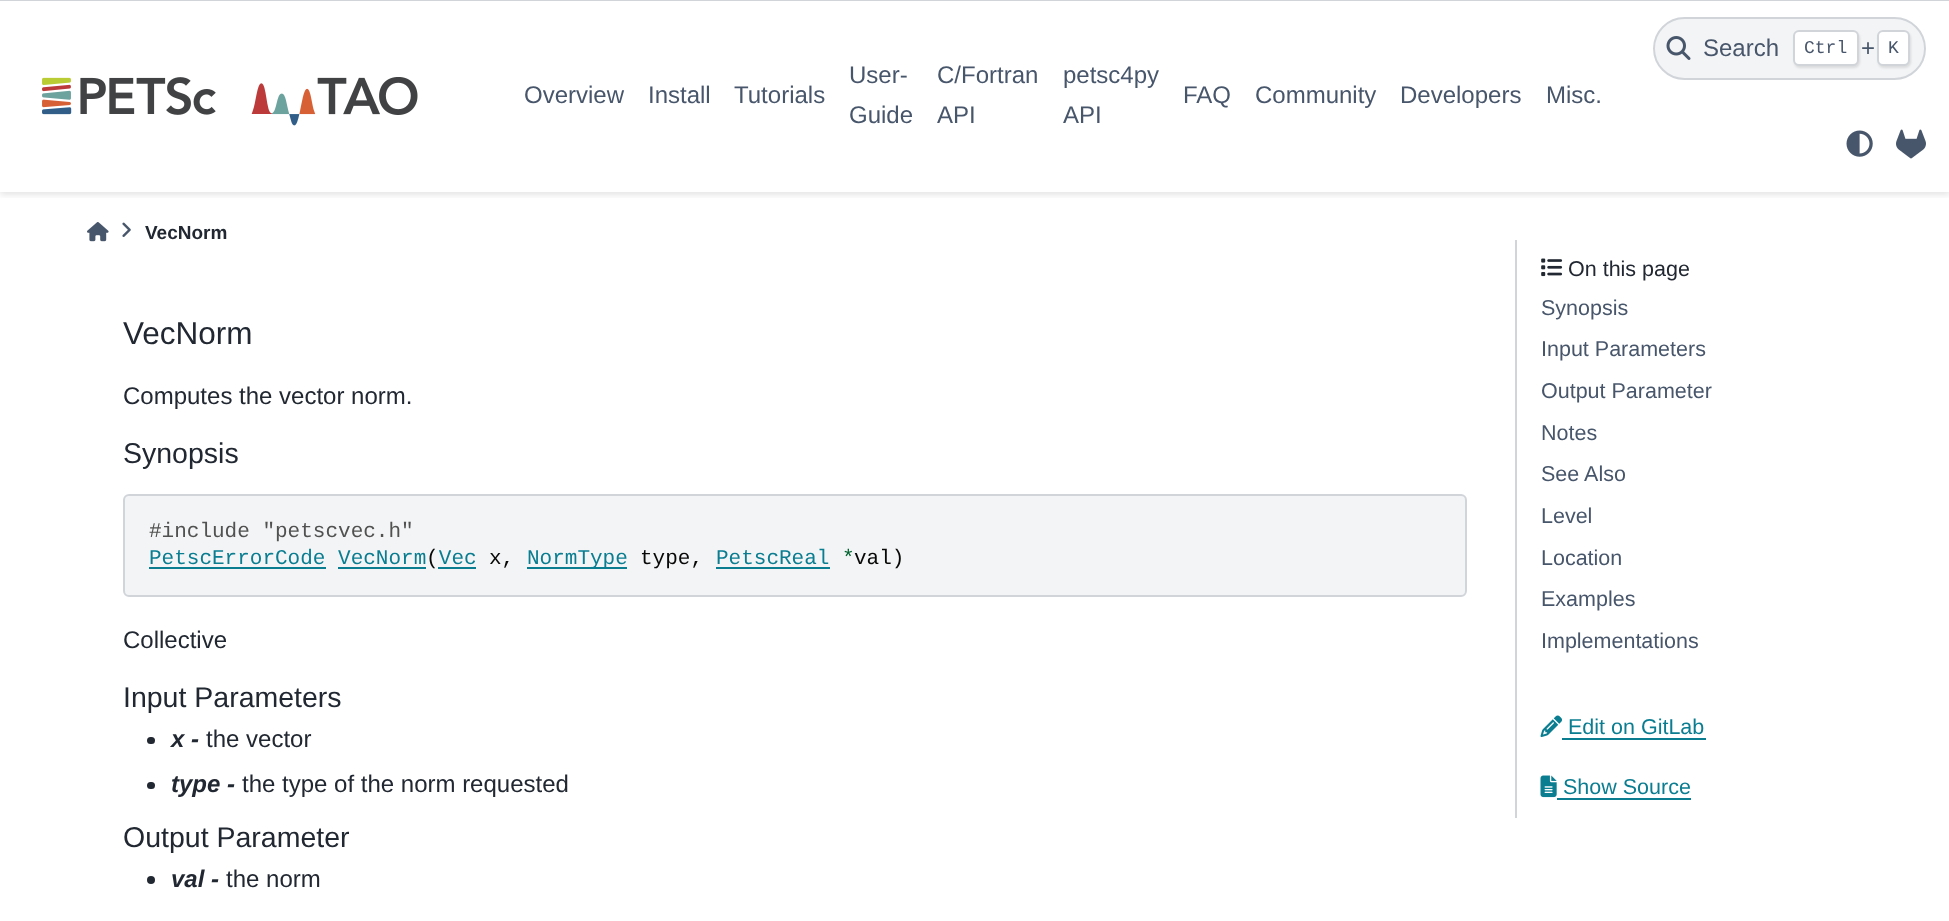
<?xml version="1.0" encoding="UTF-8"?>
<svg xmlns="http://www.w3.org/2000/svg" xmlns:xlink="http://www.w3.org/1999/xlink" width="1949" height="921">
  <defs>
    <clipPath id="clip1"><rect x="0" y="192" width="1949" height="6" /></clipPath>
  </defs>
  <rect width="100%" height="100%" fill="#ffffff" />
  <g clip-path="url(#clip1)">
    <rect y="3" width="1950" height="192" fill="#000000" fill-opacity="0.1" filter="blur(3px)" />
  </g>
  <rect width="1949" height="1" fill="#d1d5da" />
  <image x="42" y="77" width="376" height="49" xlink:href="image1.png" />
  <rect x="1654" y="18" width="271" height="61" rx="30.5" fill="#f3f4f5" stroke="#d1d5da" stroke-width="2" />
  <image x="1666" y="36" width="25" height="24" xlink:href="image2.png" />
  <rect x="1794" y="32" width="66" height="36" rx="6" fill="#000000" fill-opacity="0.1" filter="blur(1px)" />
  <rect x="1794" y="31" width="64" height="34" rx="5" fill="#ffffff" stroke="#d1d5da" stroke-width="2" />
  <rect x="1878" y="32" width="33" height="36" rx="6" fill="#000000" fill-opacity="0.1" filter="blur(1px)" />
  <rect x="1878" y="31" width="31" height="34" rx="5" fill="#ffffff" stroke="#d1d5da" stroke-width="2" />
  <image x="1846" y="130" width="27" height="27" xlink:href="image3.png" />
  <image x="1896" y="129" width="30" height="30" xlink:href="image4.png" />
  <image x="87" y="222" width="22" height="20" xlink:href="image5.png" />
  <image x="122" y="222" width="9" height="15" xlink:href="image6.png" />
  <rect x="124" y="495" width="1342" height="101" rx="5" fill="#f3f4f5" stroke="#d1d5da" stroke-width="2" />
  <rect x="149" y="567" width="177" height="2" fill="#0a7d91" />
  <rect x="338" y="567" width="88" height="2" fill="#0a7d91" />
  <rect x="438" y="567" width="38" height="2" fill="#0a7d91" />
  <rect x="527" y="567" width="100" height="2" fill="#0a7d91" />
  <rect x="716" y="567" width="114" height="2" fill="#0a7d91" />
  <rect x="147" y="737" width="8" height="7" rx="3.5" fill="#222832" />
  <rect x="147" y="782" width="8" height="7" rx="3.5" fill="#222832" />
  <circle cx="151" cy="880" r="4" fill="#222832" />
  <rect x="1515" y="240" width="2" height="578" fill="#d1d5da" />
  <image x="1541" y="258" width="22" height="19" xlink:href="image7.png" />
  <image x="1540" y="715" width="22" height="22" xlink:href="image8.png" />
  <rect x="1562" y="738" width="144" height="2" fill="#0a7d91" />
  <image x="1540" y="775" width="17" height="23" xlink:href="image9.png" />
  <rect x="1557" y="798" width="134" height="2" fill="#0a7d91" />
  <text x="1703" y="56" style="font-family: Liberation Sans; font-size: 24px; fill: #48566b">Search</text>
  <text x="1804" y="53" style="font-family: Liberation Mono; font-size: 18px; fill: #48566b">Ctrl</text>
  <text x="1861" y="56" style="font-family: Liberation Sans; font-size: 24px; fill: #48566b">+</text>
  <text x="1888" y="53" style="font-family: Liberation Mono; font-size: 18px; fill: #48566b">K</text>
  <text x="524" y="103" style="font-family: Liberation Sans; font-size: 24px; fill: #48566b">Overview</text>
  <text x="648" y="103" style="font-family: Liberation Sans; font-size: 24px; fill: #48566b">Install</text>
  <text x="734" y="103" style="font-family: Liberation Sans; font-size: 24px; fill: #48566b">Tutorials</text>
  <text x="849" y="83" style="font-family: Liberation Sans; font-size: 24px; fill: #48566b">User-</text>
  <text x="849" y="123" style="font-family: Liberation Sans; font-size: 24px; fill: #48566b">Guide</text>
  <text x="937" y="83" style="font-family: Liberation Sans; font-size: 24px; fill: #48566b">C/Fortran</text>
  <text x="937" y="123" style="font-family: Liberation Sans; font-size: 24px; fill: #48566b">API</text>
  <text x="1063" y="83" style="font-family: Liberation Sans; font-size: 24px; fill: #48566b">petsc4py</text>
  <text x="1063" y="123" style="font-family: Liberation Sans; font-size: 24px; fill: #48566b">API</text>
  <text x="1183" y="103" style="font-family: Liberation Sans; font-size: 24px; fill: #48566b">FAQ</text>
  <text x="1255" y="103" style="font-family: Liberation Sans; font-size: 24px; fill: #48566b">Community</text>
  <text x="1400" y="103" style="font-family: Liberation Sans; font-size: 24px; fill: #48566b">Developers</text>
  <text x="1546" y="103" style="font-family: Liberation Sans; font-size: 24px; fill: #48566b">Misc.</text>
  <text x="145" y="239" style="font-family: Liberation Sans; font-size: 19px; font-weight: bold; fill: #222832">VecNorm</text>
  <text x="123" y="344" style="font-family: Liberation Sans; font-size: 31.5px; fill: #222832">VecNorm</text>
  <text x="123" y="404" style="font-family: Liberation Sans; font-size: 24px; fill: #222832">Computes the vector norm.</text>
  <text x="123" y="463" style="font-family: Liberation Sans; font-size: 28.5px; fill: #222832">Synopsis</text>
  <text x="149" y="537" style="font-family: Liberation Mono; font-size: 21px; fill: #515151">#include "petscvec.h"</text>
  <text x="149" y="564" style="font-family: Liberation Mono; font-size: 21px; fill: #0a7d91">PetscErrorCode VecNorm Vec</text>
  <text x="426" y="564" style="font-family: Liberation Mono; font-size: 21px; fill: #080808">(</text>
  <text x="489" y="564" style="font-family: Liberation Mono; font-size: 21px; fill: #080808">x,</text>
  <text x="527" y="564" style="font-family: Liberation Mono; font-size: 21px; fill: #0a7d91">NormType</text>
  <text x="640" y="564" style="font-family: Liberation Mono; font-size: 21px; fill: #080808">type,</text>
  <text x="716" y="564" style="font-family: Liberation Mono; font-size: 21px; fill: #0a7d91">PetscReal</text>
  <text x="842" y="564" style="font-family: Liberation Mono; font-size: 21px; fill: #00622f">*</text>
  <text x="854" y="564" style="font-family: Liberation Mono; font-size: 21px; fill: #080808">val)</text>
  <text x="123" y="648" style="font-family: Liberation Sans; font-size: 24px; fill: #222832">Collective</text>
  <text x="123" y="707" style="font-family: Liberation Sans; font-size: 28.5px; fill: #222832">Input Parameters</text>
  <text x="171" y="747" style="font-family: Liberation Sans; font-size: 24px; font-weight: bold; font-style: italic; fill: #222832">x -</text>
  <text x="206" y="747" style="font-family: Liberation Sans; font-size: 24px; fill: #222832">the vector</text>
  <text x="171" y="792" style="font-family: Liberation Sans; font-size: 24px; font-weight: bold; font-style: italic; fill: #222832">type -</text>
  <text x="242" y="792" style="font-family: Liberation Sans; font-size: 24px; fill: #222832">the type of the norm requested</text>
  <text x="123" y="847" style="font-family: Liberation Sans; font-size: 28.5px; fill: #222832">Output Parameter</text>
  <text x="171" y="887" style="font-family: Liberation Sans; font-size: 24px; font-weight: bold; font-style: italic; fill: #222832">val -</text>
  <text x="226" y="887" style="font-family: Liberation Sans; font-size: 24px; fill: #222832">the norm</text>
  <text x="1568" y="276" style="font-family: Liberation Sans; font-size: 21.5px; fill: #222832">On this page</text>
  <text x="1541" y="315" style="font-family: Liberation Sans; font-size: 21.5px; fill: #48566b">Synopsis</text>
  <text x="1541" y="356" style="font-family: Liberation Sans; font-size: 21.5px; fill: #48566b">Input Parameters</text>
  <text x="1541" y="398" style="font-family: Liberation Sans; font-size: 21.5px; fill: #48566b">Output Parameter</text>
  <text x="1541" y="440" style="font-family: Liberation Sans; font-size: 21.5px; fill: #48566b">Notes</text>
  <text x="1541" y="481" style="font-family: Liberation Sans; font-size: 21.5px; fill: #48566b">See Also</text>
  <text x="1541" y="523" style="font-family: Liberation Sans; font-size: 21.5px; fill: #48566b">Level</text>
  <text x="1541" y="565" style="font-family: Liberation Sans; font-size: 21.5px; fill: #48566b">Location</text>
  <text x="1541" y="606" style="font-family: Liberation Sans; font-size: 21.5px; fill: #48566b">Examples</text>
  <text x="1541" y="648" style="font-family: Liberation Sans; font-size: 21.5px; fill: #48566b">Implementations</text>
  <text x="1568" y="734" style="font-family: Liberation Sans; font-size: 21.5px; fill: #0a7d91">Edit on GitLab</text>
  <text x="1563" y="794" style="font-family: Liberation Sans; font-size: 21.5px; fill: #0a7d91">Show Source</text>
</svg>
